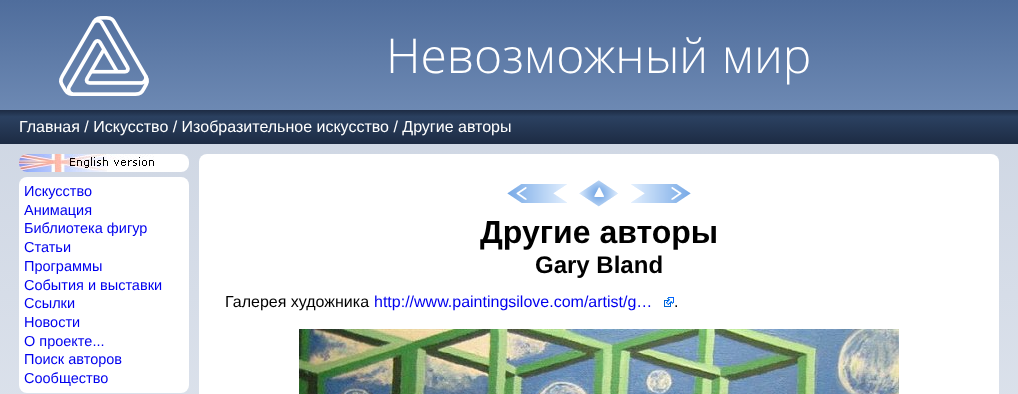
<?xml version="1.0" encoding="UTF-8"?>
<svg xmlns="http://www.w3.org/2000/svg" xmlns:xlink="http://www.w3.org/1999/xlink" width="1018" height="394">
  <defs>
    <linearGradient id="g1" gradientUnits="userSpaceOnUse" x1="509" y1="0" x2="509" y2="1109"><stop offset="0.09" stop-color="#ced6e3" /><stop offset="0.72" stop-color="#ebeff5" /></linearGradient>
    <linearGradient id="g2" gradientUnits="userSpaceOnUse" x1="509" y1="0" x2="509" y2="110"><stop offset="0" stop-color="#4f6d9c" /><stop offset="1" stop-color="#6d89b3" /></linearGradient>
    <linearGradient id="g3" gradientUnits="userSpaceOnUse" x1="509" y1="110" x2="509" y2="144"><stop offset="0" stop-color="#1d2b43" /><stop offset="0.2" stop-color="#2b4161" /><stop offset="1" stop-color="#1d2b43" /></linearGradient>
  </defs>
  <rect width="100%" height="100%" fill="#ffffff" />
  <rect y="144" width="1018" height="250" fill="url(#g1)" />
  <rect width="1018" height="110" fill="url(#g2)" />
  <image x="59" y="16" width="90" height="80" xlink:href="image1.png" />
  <rect y="110" width="1018" height="34" fill="url(#g3)" />
  <rect x="19" y="154" width="170" height="18" rx="8" fill="#ffffff" />
  <image x="19" y="154" width="135" height="18" xlink:href="image2.png" />
  <rect x="19" y="177" width="170" height="216" rx="8" fill="#ffffff" />
  <rect x="199" y="154" width="800" height="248" rx="8" fill="#ffffff" />
  <image x="507" y="184" width="60" height="19" xlink:href="image3.png" />
  <image x="579" y="180" width="39" height="27" xlink:href="image4.png" />
  <image x="631" y="184" width="60" height="19" xlink:href="image5.png" />
  <image x="664" y="297" width="10" height="10" xlink:href="image6.png" />
  <image x="299" y="329" width="600" height="65" xlink:href="image7.png" />
  <text x="386" y="73" word-spacing="1" style="font-family: Open Sans; font-size: 48px; font-weight: 300; fill: #ffffff">Невозможный мир</text>
  <text x="19" y="132" style="font-family: Liberation Sans; font-size: 16px; fill: #ffffff">Главная / Искусство / Изобразительное искусство / Другие авторы</text>
  <text x="24" y="196" style="font-family: Liberation Sans; font-size: 14.5px; fill: #0000ee">Искусство</text>
  <text x="24" y="215" style="font-family: Liberation Sans; font-size: 14.5px; fill: #0000ee">Анимация</text>
  <text x="24" y="233" style="font-family: Liberation Sans; font-size: 14.5px; fill: #0000ee">Библиотека фигур</text>
  <text x="24" y="252" style="font-family: Liberation Sans; font-size: 14.5px; fill: #0000ee">Статьи</text>
  <text x="24" y="271" style="font-family: Liberation Sans; font-size: 14.5px; fill: #0000ee">Программы</text>
  <text x="24" y="290" style="font-family: Liberation Sans; font-size: 14.5px; fill: #0000ee">События и выставки</text>
  <text x="24" y="308" style="font-family: Liberation Sans; font-size: 14.5px; fill: #0000ee">Ссылки</text>
  <text x="24" y="327" style="font-family: Liberation Sans; font-size: 14.5px; fill: #0000ee">Новости</text>
  <text x="24" y="346" style="font-family: Liberation Sans; font-size: 14.5px; fill: #0000ee">О проекте...</text>
  <text x="24" y="364" style="font-family: Liberation Sans; font-size: 14.5px; fill: #0000ee">Поиск авторов</text>
  <text x="24" y="383" style="font-family: Liberation Sans; font-size: 14.5px; fill: #0000ee">Сообщество</text>
  <text x="480" y="243" style="font-family: Liberation Sans; font-size: 32px; font-weight: bold; fill: #000000">Другие авторы</text>
  <text x="535" y="273" style="font-family: Liberation Sans; font-size: 24px; font-weight: bold; fill: #000000">Gary Bland</text>
  <text x="225" y="307" style="font-family: Liberation Sans; font-size: 16px; fill: #000000">Галерея художника</text>
  <text x="374" y="307" style="font-family: Liberation Sans; font-size: 16px; fill: #0000ee">http://www.paintingsilove.com/artist/g…</text>
  <text x="674" y="307" style="font-family: Liberation Sans; font-size: 16px; fill: #000000">.</text>
</svg>
